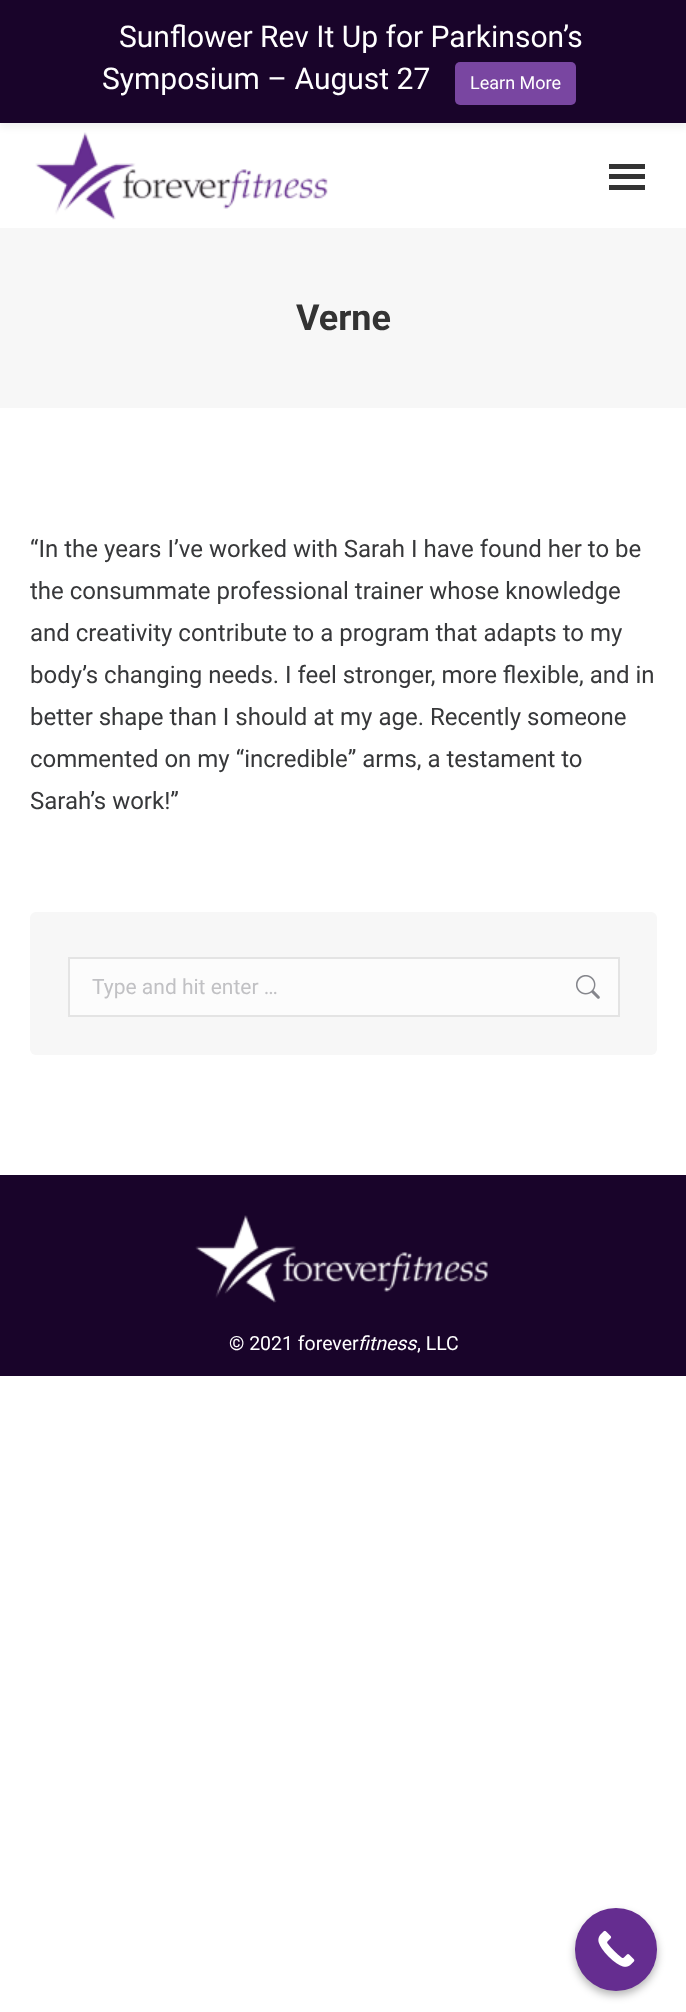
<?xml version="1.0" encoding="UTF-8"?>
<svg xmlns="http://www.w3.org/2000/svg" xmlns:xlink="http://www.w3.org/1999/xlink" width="686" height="2012">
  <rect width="100%" height="100%" fill="#ffffff" />
  <image x="35" y="132" width="293" height="88" xlink:href="image1.png" />
  <rect y="5" width="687" height="123" fill="#000000" fill-opacity="0.05" filter="blur(3px)" />
  <rect width="686" height="123" fill="#19042a" />
  <rect x="455" y="62" width="121" height="43" rx="5" fill="#7946a1" />
  <rect x="609" y="164" width="36" height="5" fill="#333333" />
  <rect x="609" y="174" width="36" height="5" fill="#333333" />
  <rect x="609" y="185" width="36" height="5" fill="#333333" />
  <rect y="228" width="686" height="180" fill="#f7f7f7" />
  <rect x="30" y="912" width="627" height="143" rx="6" fill="#f7f7f7" />
  <rect x="69" y="958" width="550" height="58" fill="#fcfcfc" stroke="#e4e4e4" stroke-width="2" />
  <image x="576" y="975" width="24" height="24" xlink:href="image2.png" />
  <rect y="1175" width="686" height="201" fill="#19042a" />
  <image x="195" y="1215" width="293" height="88" xlink:href="image3.png" />
  <rect x="575" y="1913" width="82" height="82" rx="41" fill="#000000" fill-opacity="0.3" filter="blur(4.5px)" />
  <rect x="575" y="1908" width="82" height="83" rx="41" fill="#652d90" />
  <image x="598" y="1930" width="37" height="37" xlink:href="image4.png" />
  <text x="119" y="47" style="font-family: Roboto; font-size: 30px; fill: #ffffff">Sunflower Rev It Up for Parkinson’s</text>
  <text x="102" y="89" style="font-family: Roboto; font-size: 30px; fill: #ffffff">Symposium – August 27</text>
  <text x="470" y="89" style="font-family: Roboto; font-size: 18px; fill: #ffffff">Learn More</text>
  <text x="296" y="330" style="font-family: Roboto; font-size: 36px; font-weight: bold; fill: #333333">Verne</text>
  <text x="30" y="557" style="font-family: Roboto; font-size: 24px; fill: #37383a">“In the years I’ve worked with Sarah I have found her to be</text>
  <text x="30" y="599" style="font-family: Roboto; font-size: 24px; fill: #37383a">the consummate professional trainer whose knowledge</text>
  <text x="30" y="641" style="font-family: Roboto; font-size: 24px; fill: #37383a">and creativity contribute to a program that adapts to my</text>
  <text x="30" y="683" style="font-family: Roboto; font-size: 24px; fill: #37383a">body’s changing needs. I feel stronger, more flexible, and in</text>
  <text x="30" y="725" style="font-family: Roboto; font-size: 24px; fill: #37383a">better shape than I should at my age. Recently someone</text>
  <text x="30" y="767" style="font-family: Roboto; font-size: 24px; fill: #37383a">commented on my “incredible” arms, a testament to</text>
  <text x="30" y="809" style="font-family: Roboto; font-size: 24px; fill: #37383a">Sarah’s work!”</text>
  <text x="92" y="994" style="font-family: Roboto; font-size: 21px; fill: #c1c1c4">Type and hit enter …</text>
  <text x="229" y="1350" style="font-family: Roboto; font-size: 19.5px; fill: #ffffff">© 2021 forever</text>
  <text x="358" y="1350" style="font-family: Roboto; font-size: 19.5px; font-style: italic; fill: #ffffff">fitness</text>
  <text x="417" y="1350" style="font-family: Roboto; font-size: 19.5px; fill: #ffffff">, LLC</text>
</svg>
